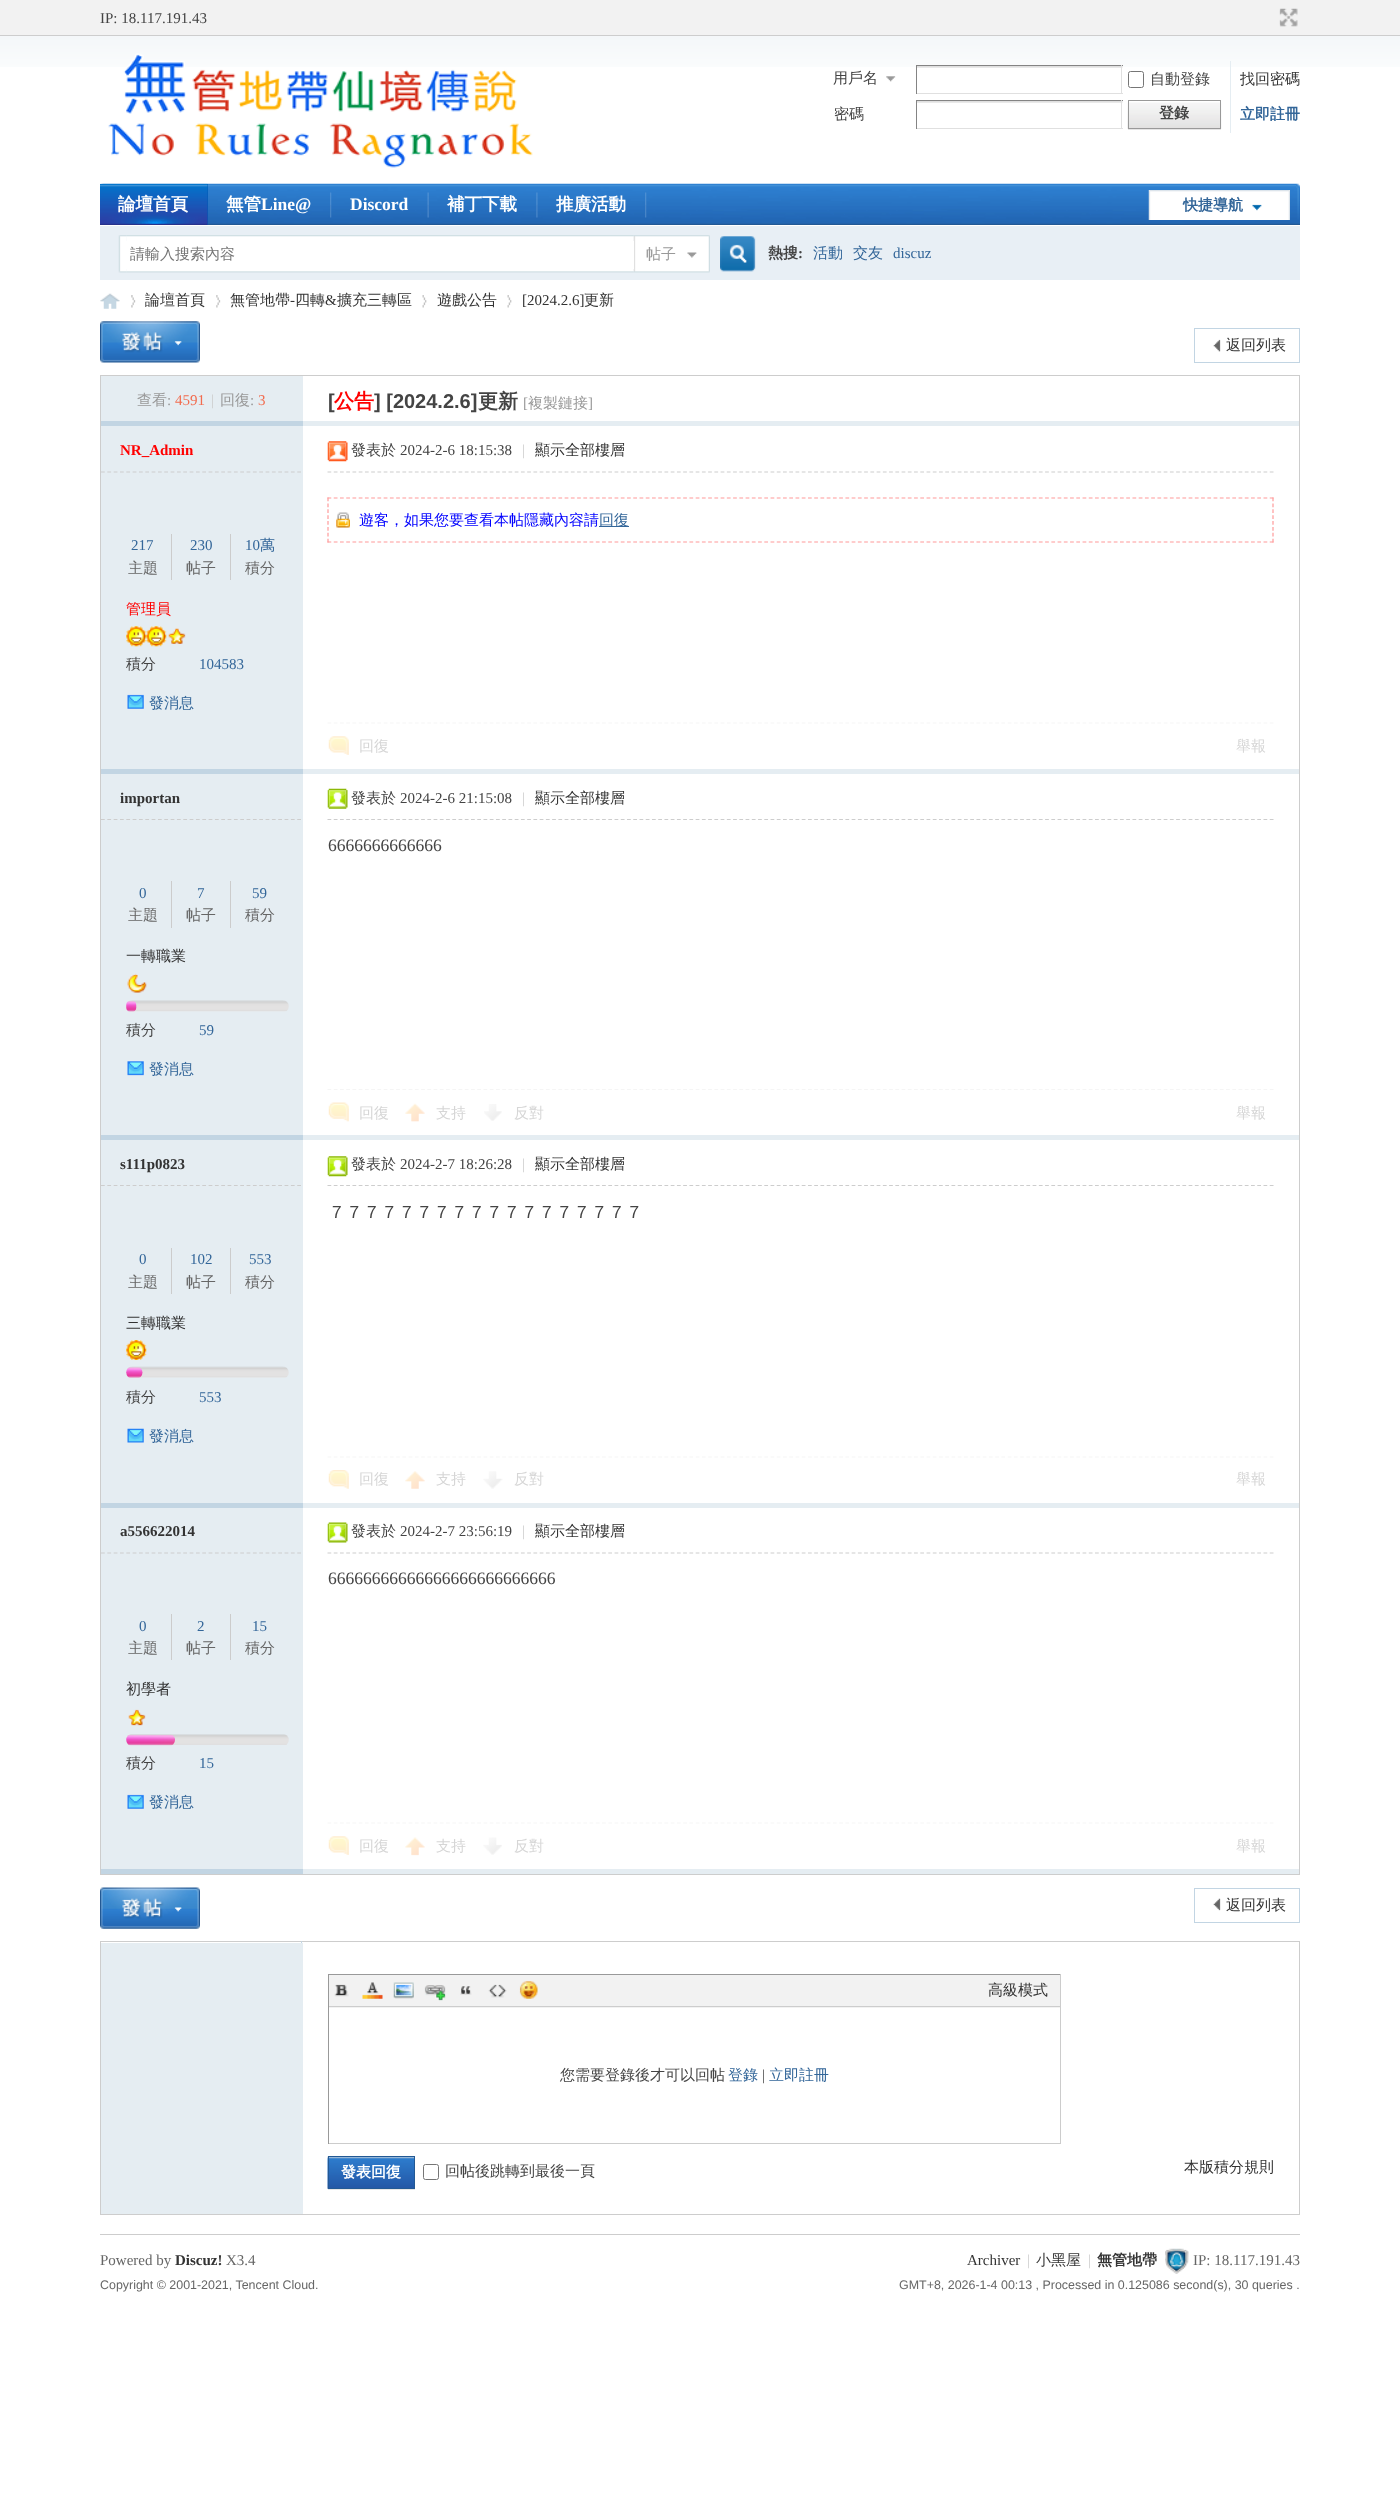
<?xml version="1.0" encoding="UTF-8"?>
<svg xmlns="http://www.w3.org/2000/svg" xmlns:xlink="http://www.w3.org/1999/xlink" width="1400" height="2519">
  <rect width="100%" height="100%" fill="#ffffff" />
  <image x="0" y="36" width="1400" height="31" xlink:href="image1.png" />
  <rect width="1400" height="35" fill="#f2f2f2" />
  <rect y="35" width="1400" height="1" fill="#cdcdcd" />
  <image x="1279" y="8" width="19" height="19" xlink:href="image2.png" />
  <image x="108" y="53" width="425" height="115" xlink:href="image3.png" />
  <image x="886" y="76" width="10" height="6" xlink:href="image4.png" />
  <rect x="917" y="66" width="206" height="1" fill="#ffffff" />
  <image x="917" y="66" width="206" height="2" xlink:href="image5.png" />
  <rect x="916" y="65" width="207" height="1" fill="#848484" />
  <rect x="1121" y="65" width="1" height="29" fill="#e0e0e0" />
  <rect x="916" y="93" width="207" height="1" fill="#e0e0e0" />
  <rect x="916" y="65" width="1" height="29" fill="#848484" />
  <rect x="1128.5" y="71.5" width="15" height="16" rx="2" fill="none" stroke="#767676" />
  <image x="917" y="101" width="206" height="2" xlink:href="image5.png" />
  <rect x="916" y="100" width="207" height="1" fill="#848484" />
  <rect x="1121" y="100" width="1" height="29" fill="#e0e0e0" />
  <rect x="916" y="128" width="207" height="1" fill="#e0e0e0" />
  <rect x="916" y="100" width="1" height="29" fill="#848484" />
  <rect x="1230" y="61" width="1" height="72" fill="#e5edf2" />
  <rect x="1128" y="129" width="93" height="1" fill="#e5e5e5" />
  <image x="1127" y="101" width="95" height="28" xlink:href="image6.png" />
  <rect x="1128.5" y="100.5" width="92" height="28" fill="none" stroke="#999999" />
  <image x="100" y="183" width="1200" height="42" xlink:href="image7.png" />
  <rect x="207" y="184" width="1" height="41" fill="#005ab4" />
  <image x="100" y="183" width="108" height="42" xlink:href="image8.png" />
  <image x="330" y="192" width="2" height="26" xlink:href="image9.png" />
  <image x="427" y="192" width="2" height="26" xlink:href="image10.png" />
  <image x="536" y="192" width="2" height="26" xlink:href="image11.png" />
  <image x="645" y="192" width="2" height="26" xlink:href="image12.png" />
  <image x="1148" y="190" width="142" height="30" xlink:href="image13.png" />
  <rect x="100" y="226" width="1200" height="54" fill="#e8eff5" />
  <image x="118" y="235" width="9" height="38" xlink:href="image14.png" />
  <image x="126" y="235" width="508" height="38" xlink:href="image15.png" />
  <image x="633" y="235" width="77" height="38" xlink:href="image16.png" />
  <rect x="126" y="241" width="508" height="28" fill="#ffffff" />
  <image x="720" y="236" width="36" height="36" xlink:href="image17.png" />
  <image x="100" y="293" width="20" height="16" xlink:href="image18.png" />
  <image x="131" y="295" width="5" height="13" xlink:href="image19.png" />
  <image x="216" y="295" width="5" height="13" xlink:href="image20.png" />
  <image x="422" y="295" width="5" height="13" xlink:href="image21.png" />
  <image x="507" y="295" width="5" height="13" xlink:href="image21.png" />
  <image x="100" y="321" width="100" height="42" xlink:href="image22.png" />
  <image x="1213" y="339" width="8" height="13" xlink:href="image23.png" />
  <rect x="1194.5" y="328.5" width="105" height="34" fill="none" stroke="#c2d5e3" />
  <rect x="100.5" y="375.5" width="1199" height="1499" fill="none" stroke="#cdcdcd" />
  <rect x="101" y="376" width="202" height="45" fill="#e5edf2" />
  <rect x="101" y="421" width="202" height="5" fill="#c2d5e3" />
  <rect x="303" y="421" width="996" height="5" fill="#e5edf2" />
  <rect x="101" y="426" width="202" height="343" fill="#e5edf2" />
  <path d="M 101 472 h 200" fill="none" stroke="#cdcdcd" stroke-width="1.2" stroke-dasharray="3.75 2.58" />
  <rect x="171" y="534" width="1" height="46" fill="#cccccc" />
  <rect x="230" y="534" width="1" height="46" fill="#cccccc" />
  <image x="126" y="626" width="21" height="21" xlink:href="image24.png" />
  <image x="146" y="626" width="21" height="21" xlink:href="image25.png" />
  <image x="168" y="628" width="18" height="16" xlink:href="image26.png" />
  <image x="127" y="694" width="17" height="15" xlink:href="image27.png" />
  <path d="M 327.5 472 h 946.5" fill="none" stroke="#cdcdcd" stroke-width="1.2" stroke-dasharray="3.75 2.49" />
  <image x="327" y="441" width="21" height="21" xlink:href="image28.png" />
  <image x="336" y="512" width="14" height="16" xlink:href="image29.png" />
  <path d="M 327.5 498 h 946.5" fill="none" stroke="#ff9a9a" stroke-width="1.2" stroke-dasharray="3.75 2.49" />
  <path d="M 1273 497.5 v 45" fill="none" stroke="#ff9a9a" stroke-width="1.2" stroke-dasharray="3.75 2.14" />
  <path d="M 327.5 542 h 946.5" fill="none" stroke="#ff9a9a" stroke-width="1.2" stroke-dasharray="3.75 2.49" />
  <path d="M 328 497.5 v 45" fill="none" stroke="#ff9a9a" stroke-width="1.2" stroke-dasharray="3.75 2.14" />
  <rect x="599" y="526" width="30" height="1" fill="#336699" />
  <path d="M 327.5 723 h 946.5" fill="none" stroke="#f5f5f5" stroke-width="1.2" stroke-dasharray="3.75 2.49" />
  <image x="328" y="736" width="21" height="19" xlink:href="image30.png" />
  <rect x="101" y="769" width="202" height="5" fill="#c2d5e3" />
  <rect x="303" y="769" width="996" height="5" fill="#e5edf2" />
  <rect x="101" y="774" width="202" height="361" fill="#e5edf2" />
  <path d="M 101 819.5 h 200" fill="none" stroke="#cdcdcd" stroke-width="1.2" stroke-dasharray="3.75 2.58" />
  <rect x="171" y="881" width="1" height="47" fill="#cccccc" />
  <rect x="230" y="881" width="1" height="47" fill="#cccccc" />
  <image x="127" y="973" width="20" height="20" xlink:href="image31.png" />
  <image x="126" y="1000" width="163" height="12" xlink:href="image32.png" />
  <image x="126" y="1001" width="11" height="11" xlink:href="image33.png" />
  <image x="127" y="1061" width="17" height="15" xlink:href="image34.png" />
  <path d="M 327.5 819.5 h 946.5" fill="none" stroke="#cdcdcd" stroke-width="1.2" stroke-dasharray="3.75 2.49" />
  <image x="327" y="788" width="21" height="21" xlink:href="image35.png" />
  <path d="M 327.5 1089.5 h 946.5" fill="none" stroke="#f5f5f5" stroke-width="1.2" stroke-dasharray="3.75 2.49" />
  <image x="328" y="1102" width="21" height="20" xlink:href="image36.png" />
  <image x="405" y="1103" width="20" height="19" xlink:href="image37.png" />
  <image x="484" y="1104" width="18" height="17" xlink:href="image38.png" />
  <rect x="101" y="1135" width="202" height="5" fill="#c2d5e3" />
  <rect x="303" y="1135" width="996" height="5" fill="#e5edf2" />
  <rect x="101" y="1140" width="202" height="363" fill="#e5edf2" />
  <path d="M 101 1185.5 h 200" fill="none" stroke="#cdcdcd" stroke-width="1.2" stroke-dasharray="3.75 2.58" />
  <rect x="171" y="1248" width="1" height="46" fill="#cccccc" />
  <rect x="230" y="1248" width="1" height="46" fill="#cccccc" />
  <image x="126" y="1340" width="21" height="20" xlink:href="image39.png" />
  <image x="126" y="1366" width="163" height="12" xlink:href="image40.png" />
  <image x="126" y="1367" width="17" height="11" xlink:href="image41.png" />
  <image x="127" y="1428" width="17" height="15" xlink:href="image42.png" />
  <path d="M 327.5 1185.5 h 946.5" fill="none" stroke="#cdcdcd" stroke-width="1.2" stroke-dasharray="3.75 2.49" />
  <image x="327" y="1156" width="21" height="21" xlink:href="image43.png" />
  <path d="M 327.5 1457 h 946.5" fill="none" stroke="#f5f5f5" stroke-width="1.2" stroke-dasharray="3.75 2.49" />
  <image x="328" y="1470" width="21" height="19" xlink:href="image44.png" />
  <image x="405" y="1471" width="20" height="18" xlink:href="image45.png" />
  <image x="483" y="1471" width="20" height="18" xlink:href="image46.png" />
  <rect x="101" y="1503" width="202" height="5" fill="#c2d5e3" />
  <rect x="303" y="1503" width="996" height="5" fill="#e5edf2" />
  <rect x="101" y="1508" width="202" height="361" fill="#e5edf2" />
  <path d="M 101 1553 h 200" fill="none" stroke="#cdcdcd" stroke-width="1.2" stroke-dasharray="3.75 2.58" />
  <rect x="171" y="1614" width="1" height="46" fill="#cccccc" />
  <rect x="230" y="1614" width="1" height="46" fill="#cccccc" />
  <image x="128" y="1709" width="18" height="17" xlink:href="image47.png" />
  <image x="126" y="1734" width="163" height="11" xlink:href="image48.png" />
  <image x="126" y="1734" width="49" height="12" xlink:href="image49.png" />
  <image x="127" y="1794" width="17" height="15" xlink:href="image27.png" />
  <path d="M 327.5 1553 h 946.5" fill="none" stroke="#cdcdcd" stroke-width="1.2" stroke-dasharray="3.75 2.49" />
  <image x="327" y="1522" width="21" height="21" xlink:href="image50.png" />
  <path d="M 327.5 1823 h 946.5" fill="none" stroke="#f5f5f5" stroke-width="1.2" stroke-dasharray="3.75 2.49" />
  <image x="328" y="1836" width="21" height="19" xlink:href="image30.png" />
  <image x="405" y="1837" width="20" height="19" xlink:href="image51.png" />
  <image x="483" y="1837" width="19" height="18" xlink:href="image52.png" />
  <rect x="101" y="1869" width="202" height="5" fill="#c2d5e3" />
  <rect x="303" y="1869" width="996" height="5" fill="#e5edf2" />
  <image x="100" y="1887" width="100" height="42" xlink:href="image53.png" />
  <image x="1213" y="1898" width="8" height="13" xlink:href="image54.png" />
  <rect x="1194.5" y="1888.5" width="105" height="34" fill="none" stroke="#c2d5e3" />
  <rect x="100.5" y="1941.5" width="1199" height="273" fill="none" stroke="#cdcdcd" />
  <rect x="301" y="1941" width="1" height="2" fill="#c2d5e3" />
  <rect x="101" y="1943" width="202" height="271" fill="#e5edf2" />
  <rect x="328" y="1974" width="733" height="1" fill="#999999" />
  <rect x="1060" y="1974" width="1" height="170" fill="#cccccc" />
  <rect x="328" y="2143" width="733" height="1" fill="#cccccc" />
  <rect x="328" y="1974" width="1" height="170" fill="#999999" />
  <rect x="329" y="1975" width="731" height="33" fill="#f2f2f2" />
  <rect x="329" y="2006" width="731" height="1" fill="#cdcdcd" />
  <image x="334" y="1984" width="15" height="13" xlink:href="image55.png" />
  <image x="362" y="1982" width="21" height="17" xlink:href="image56.png" />
  <image x="393" y="1982" width="21" height="17" xlink:href="image57.png" />
  <image x="424" y="1985" width="22" height="16" xlink:href="image58.png" />
  <image x="460" y="1986" width="12" height="9" xlink:href="image59.png" />
  <image x="488" y="1984" width="19" height="14" xlink:href="image60.png" />
  <image x="519" y="1981" width="19" height="18" xlink:href="image61.png" />
  <rect x="328" y="2189" width="87" height="1" fill="#e5e5e5" />
  <image x="327" y="2156" width="87" height="33" xlink:href="image62.png" />
  <rect x="328.5" y="2156.5" width="86" height="32" fill="none" stroke="#235994" />
  <rect x="423.5" y="2164.5" width="15" height="15" rx="2" fill="none" stroke="#767676" />
  <rect x="100" y="2234" width="1200" height="1" fill="#cdcdcd" />
  <image x="1165" y="2248" width="24" height="26" xlink:href="image63.png" />
  <text x="100" y="23" style="font-family: Liberation Serif; font-size: 15px; fill: #444444">IP: 18.117.191.43</text>
  <text x="833" y="83" style="font-family: WenQuanYi Zen Hei; font-size: 15px; font-weight: 500; fill: #444444">用戶名</text>
  <text x="1150" y="84" style="font-family: WenQuanYi Zen Hei; font-size: 15px; font-weight: 500; fill: #444444">自動登錄</text>
  <text x="1240" y="84" style="font-family: WenQuanYi Zen Hei; font-size: 15px; font-weight: 500; fill: #333333">找回密碼</text>
  <text x="834" y="119" style="font-family: WenQuanYi Zen Hei; font-size: 15px; font-weight: 500; fill: #444444">密碼</text>
  <text x="1159" y="118" style="font-family: WenQuanYi Zen Hei; font-size: 15px; font-weight: bold; fill: #444444">登錄</text>
  <text x="1240" y="119" style="font-family: WenQuanYi Zen Hei; font-size: 15px; font-weight: bold; fill: #336699">立即註冊</text>
  <text x="118" y="210" style="font-family: WenQuanYi Zen Hei; font-size: 17.5px; font-weight: bold; fill: #ffffff">論壇首頁</text>
  <text x="226" y="210" style="font-family: WenQuanYi Zen Hei; font-size: 17.5px; font-weight: bold; fill: #ffffff">無管</text>
  <text x="261" y="210" style="font-family: Liberation Serif; font-size: 17.5px; font-weight: bold; fill: #ffffff">Line@</text>
  <text x="350" y="210" style="font-family: Liberation Serif; font-size: 17.5px; font-weight: bold; fill: #ffffff">Discord</text>
  <text x="447" y="210" style="font-family: WenQuanYi Zen Hei; font-size: 17.5px; font-weight: bold; fill: #ffffff">補丁下載</text>
  <text x="556" y="210" style="font-family: WenQuanYi Zen Hei; font-size: 17.5px; font-weight: bold; fill: #ffffff">推廣活動</text>
  <text x="1183" y="210" style="font-family: WenQuanYi Zen Hei; font-size: 15px; font-weight: bold; fill: #336699">快捷導航</text>
  <text x="130" y="259" style="font-family: WenQuanYi Zen Hei; font-size: 15px; font-weight: 500; fill: #757575">請輸入搜索內容</text>
  <text x="646" y="259" style="font-family: WenQuanYi Zen Hei; font-size: 15px; font-weight: 500; fill: #999999">帖子</text>
  <text x="768" y="258" style="font-family: WenQuanYi Zen Hei; font-size: 15px; font-weight: bold; fill: #444444">熱搜</text>
  <text x="798" y="258" style="font-family: Liberation Serif; font-size: 15px; font-weight: bold; fill: #444444">:</text>
  <text x="813" y="258" style="font-family: WenQuanYi Zen Hei; font-size: 15px; font-weight: 500; fill: #336699">活動</text>
  <text x="853" y="258" style="font-family: WenQuanYi Zen Hei; font-size: 15px; font-weight: 500; fill: #336699">交友</text>
  <text x="893" y="258" style="font-family: Liberation Serif; font-size: 15px; fill: #336699">discuz</text>
  <text x="145" y="305" style="font-family: WenQuanYi Zen Hei; font-size: 15px; font-weight: 500; fill: #333333">論壇首頁</text>
  <text x="230" y="305" style="font-family: WenQuanYi Zen Hei; font-size: 15px; font-weight: 500; fill: #333333">無管地帶</text>
  <text x="290" y="305" style="font-family: Liberation Serif; font-size: 15px; fill: #333333">-</text>
  <text x="295" y="305" style="font-family: WenQuanYi Zen Hei; font-size: 15px; font-weight: 500; fill: #333333">四轉</text>
  <text x="325" y="305" style="font-family: Liberation Serif; font-size: 15px; fill: #333333">&amp;</text>
  <text x="337" y="305" style="font-family: WenQuanYi Zen Hei; font-size: 15px; font-weight: 500; fill: #333333">擴充三轉區</text>
  <text x="437" y="305" style="font-family: WenQuanYi Zen Hei; font-size: 15px; font-weight: 500; fill: #333333">遊戲公告</text>
  <text x="522" y="305" style="font-family: Liberation Serif; font-size: 15px; fill: #333333">[2024.2.6]</text>
  <text x="584" y="305" style="font-family: WenQuanYi Zen Hei; font-size: 15px; font-weight: 500; fill: #333333">更新</text>
  <text x="1226" y="350" style="font-family: WenQuanYi Zen Hei; font-size: 15px; font-weight: 500; fill: #333333">返回列表</text>
  <text x="137" y="405" style="font-family: WenQuanYi Zen Hei; font-size: 15px; font-weight: 500; fill: #999999">查看</text>
  <text x="167" y="405" style="font-family: Liberation Serif; font-size: 15px; fill: #999999">:</text>
  <text x="175" y="405" style="font-family: Liberation Serif; font-size: 15px; fill: #f26c4f">4591</text>
  <text x="211" y="405" style="font-family: Liberation Serif; font-size: 15px; fill: #cccccc">|</text>
  <text x="220" y="405" style="font-family: WenQuanYi Zen Hei; font-size: 15px; font-weight: 500; fill: #999999">回復</text>
  <text x="250" y="405" style="font-family: Liberation Serif; font-size: 15px; fill: #999999">:</text>
  <text x="258" y="405" style="font-family: Liberation Serif; font-size: 15px; fill: #f26c4f">3</text>
  <text x="328" y="408" style="font-family: Liberation Sans; font-size: 20px; font-weight: bold; fill: #444444">[</text>
  <text x="334" y="408" style="font-family: WenQuanYi Zen Hei; font-size: 20px; font-weight: bold; fill: #ff0000">公告</text>
  <text x="374" y="408" style="font-family: Liberation Sans; font-size: 20px; font-weight: bold; fill: #444444">] [2024.2.6]</text>
  <text x="478" y="408" style="font-family: WenQuanYi Zen Hei; font-size: 20px; font-weight: bold; fill: #444444">更新</text>
  <text x="523" y="408" style="font-family: Liberation Serif; font-size: 15px; fill: #999999">[</text>
  <text x="528" y="408" style="font-family: WenQuanYi Zen Hei; font-size: 15px; font-weight: 500; fill: #999999">複製鏈接</text>
  <text x="588" y="408" style="font-family: Liberation Serif; font-size: 15px; fill: #999999">]</text>
  <text x="120" y="455" style="font-family: Liberation Serif; font-size: 15px; font-weight: bold; fill: #ff0000">NR_Admin</text>
  <text x="131" y="550" style="font-family: Liberation Serif; font-size: 15px; fill: #336699">217</text>
  <text x="128" y="573" style="font-family: WenQuanYi Zen Hei; font-size: 15px; font-weight: 500; fill: #666666">主題</text>
  <text x="190" y="550" style="font-family: Liberation Serif; font-size: 15px; fill: #336699">230</text>
  <text x="186" y="573" style="font-family: WenQuanYi Zen Hei; font-size: 15px; font-weight: 500; fill: #666666">帖子</text>
  <text x="245" y="550" style="font-family: Liberation Serif; font-size: 15px; fill: #336699">10</text>
  <text x="260" y="550" style="font-family: WenQuanYi Zen Hei; font-size: 15px; font-weight: 500; fill: #336699">萬</text>
  <text x="245" y="573" style="font-family: WenQuanYi Zen Hei; font-size: 15px; font-weight: 500; fill: #666666">積分</text>
  <text x="126" y="614" style="font-family: WenQuanYi Zen Hei; font-size: 15px; font-weight: 500; fill: #ff0000">管理員</text>
  <text x="126" y="669" style="font-family: WenQuanYi Zen Hei; font-size: 15px; font-weight: 500; fill: #444444">積分</text>
  <text x="199" y="669" style="font-family: Liberation Serif; font-size: 15px; fill: #336699">104583</text>
  <text x="149" y="708" style="font-family: WenQuanYi Zen Hei; font-size: 15px; font-weight: 500; fill: #336699">發消息</text>
  <text x="351" y="455" style="font-family: WenQuanYi Zen Hei; font-size: 15px; font-weight: 500; fill: #444444">發表於</text>
  <text x="400" y="455" style="font-family: Liberation Serif; font-size: 15px; fill: #444444">2024-2-6 18:15:38</text>
  <text x="522" y="455" style="font-family: Liberation Serif; font-size: 15px; fill: #cccccc">|</text>
  <text x="535" y="455" style="font-family: WenQuanYi Zen Hei; font-size: 15px; font-weight: 500; fill: #333333">顯示全部樓層</text>
  <text x="359" y="525" style="font-family: WenQuanYi Zen Hei; font-size: 15px; font-weight: 500; fill: #0000ff">遊客，如果您要查看本帖隱藏內容請</text>
  <text x="599" y="525" style="font-family: WenQuanYi Zen Hei; font-size: 15px; font-weight: 500; fill: #336699">回復</text>
  <text x="359" y="751" style="font-family: WenQuanYi Zen Hei; font-size: 15px; font-weight: 500; fill: #d6d6d6">回復</text>
  <text x="1236" y="751" style="font-family: WenQuanYi Zen Hei; font-size: 15px; font-weight: 500; fill: #d6d6d6">舉報</text>
  <text x="120" y="803" style="font-family: Liberation Serif; font-size: 15px; font-weight: bold; fill: #333333">importan</text>
  <text x="139" y="898" style="font-family: Liberation Serif; font-size: 15px; fill: #336699">0</text>
  <text x="128" y="920" style="font-family: WenQuanYi Zen Hei; font-size: 15px; font-weight: 500; fill: #666666">主題</text>
  <text x="197" y="898" style="font-family: Liberation Serif; font-size: 15px; fill: #336699">7</text>
  <text x="186" y="920" style="font-family: WenQuanYi Zen Hei; font-size: 15px; font-weight: 500; fill: #666666">帖子</text>
  <text x="252" y="898" style="font-family: Liberation Serif; font-size: 15px; fill: #336699">59</text>
  <text x="245" y="920" style="font-family: WenQuanYi Zen Hei; font-size: 15px; font-weight: 500; fill: #666666">積分</text>
  <text x="126" y="961" style="font-family: WenQuanYi Zen Hei; font-size: 15px; font-weight: 500; fill: #333333">一轉職業</text>
  <text x="126" y="1035" style="font-family: WenQuanYi Zen Hei; font-size: 15px; font-weight: 500; fill: #444444">積分</text>
  <text x="199" y="1035" style="font-family: Liberation Serif; font-size: 15px; fill: #336699">59</text>
  <text x="149" y="1074" style="font-family: WenQuanYi Zen Hei; font-size: 15px; font-weight: 500; fill: #336699">發消息</text>
  <text x="351" y="803" style="font-family: WenQuanYi Zen Hei; font-size: 15px; font-weight: 500; fill: #444444">發表於</text>
  <text x="400" y="803" style="font-family: Liberation Serif; font-size: 15px; fill: #444444">2024-2-6 21:15:08</text>
  <text x="522" y="803" style="font-family: Liberation Serif; font-size: 15px; fill: #cccccc">|</text>
  <text x="535" y="803" style="font-family: WenQuanYi Zen Hei; font-size: 15px; font-weight: 500; fill: #333333">顯示全部樓層</text>
  <text x="328" y="851" style="font-family: Liberation Serif; font-size: 17.5px; fill: #444444">6666666666666</text>
  <text x="359" y="1118" style="font-family: WenQuanYi Zen Hei; font-size: 15px; font-weight: 500; fill: #d6d6d6">回復</text>
  <text x="436" y="1118" style="font-family: WenQuanYi Zen Hei; font-size: 15px; font-weight: 500; fill: #d6d6d6">支持</text>
  <text x="514" y="1118" style="font-family: WenQuanYi Zen Hei; font-size: 15px; font-weight: 500; fill: #d6d6d6">反對</text>
  <text x="1236" y="1118" style="font-family: WenQuanYi Zen Hei; font-size: 15px; font-weight: 500; fill: #d6d6d6">舉報</text>
  <text x="120" y="1169" style="font-family: Liberation Serif; font-size: 15px; font-weight: bold; fill: #333333">s111p0823</text>
  <text x="139" y="1264" style="font-family: Liberation Serif; font-size: 15px; fill: #336699">0</text>
  <text x="128" y="1287" style="font-family: WenQuanYi Zen Hei; font-size: 15px; font-weight: 500; fill: #666666">主題</text>
  <text x="190" y="1264" style="font-family: Liberation Serif; font-size: 15px; fill: #336699">102</text>
  <text x="186" y="1287" style="font-family: WenQuanYi Zen Hei; font-size: 15px; font-weight: 500; fill: #666666">帖子</text>
  <text x="249" y="1264" style="font-family: Liberation Serif; font-size: 15px; fill: #336699">553</text>
  <text x="245" y="1287" style="font-family: WenQuanYi Zen Hei; font-size: 15px; font-weight: 500; fill: #666666">積分</text>
  <text x="126" y="1328" style="font-family: WenQuanYi Zen Hei; font-size: 15px; font-weight: 500; fill: #333333">三轉職業</text>
  <text x="126" y="1402" style="font-family: WenQuanYi Zen Hei; font-size: 15px; font-weight: 500; fill: #444444">積分</text>
  <text x="199" y="1402" style="font-family: Liberation Serif; font-size: 15px; fill: #336699">553</text>
  <text x="149" y="1441" style="font-family: WenQuanYi Zen Hei; font-size: 15px; font-weight: 500; fill: #336699">發消息</text>
  <text x="351" y="1169" style="font-family: WenQuanYi Zen Hei; font-size: 15px; font-weight: 500; fill: #444444">發表於</text>
  <text x="400" y="1169" style="font-family: Liberation Serif; font-size: 15px; fill: #444444">2024-2-7 18:26:28</text>
  <text x="522" y="1169" style="font-family: Liberation Serif; font-size: 15px; fill: #cccccc">|</text>
  <text x="535" y="1169" style="font-family: WenQuanYi Zen Hei; font-size: 15px; font-weight: 500; fill: #333333">顯示全部樓層</text>
  <text x="328" y="1218" style="font-family: WenQuanYi Zen Hei; font-size: 17.5px; font-weight: 500; fill: #444444">７７７７７７７７７７７７７７７７７７</text>
  <text x="359" y="1484" style="font-family: WenQuanYi Zen Hei; font-size: 15px; font-weight: 500; fill: #d6d6d6">回復</text>
  <text x="436" y="1484" style="font-family: WenQuanYi Zen Hei; font-size: 15px; font-weight: 500; fill: #d6d6d6">支持</text>
  <text x="514" y="1484" style="font-family: WenQuanYi Zen Hei; font-size: 15px; font-weight: 500; fill: #d6d6d6">反對</text>
  <text x="1236" y="1484" style="font-family: WenQuanYi Zen Hei; font-size: 15px; font-weight: 500; fill: #d6d6d6">舉報</text>
  <text x="120" y="1536" style="font-family: Liberation Serif; font-size: 15px; font-weight: bold; fill: #333333">a556622014</text>
  <text x="139" y="1631" style="font-family: Liberation Serif; font-size: 15px; fill: #336699">0</text>
  <text x="128" y="1653" style="font-family: WenQuanYi Zen Hei; font-size: 15px; font-weight: 500; fill: #666666">主題</text>
  <text x="197" y="1631" style="font-family: Liberation Serif; font-size: 15px; fill: #336699">2</text>
  <text x="186" y="1653" style="font-family: WenQuanYi Zen Hei; font-size: 15px; font-weight: 500; fill: #666666">帖子</text>
  <text x="252" y="1631" style="font-family: Liberation Serif; font-size: 15px; fill: #336699">15</text>
  <text x="245" y="1653" style="font-family: WenQuanYi Zen Hei; font-size: 15px; font-weight: 500; fill: #666666">積分</text>
  <text x="126" y="1694" style="font-family: WenQuanYi Zen Hei; font-size: 15px; font-weight: 500; fill: #333333">初學者</text>
  <text x="126" y="1768" style="font-family: WenQuanYi Zen Hei; font-size: 15px; font-weight: 500; fill: #444444">積分</text>
  <text x="199" y="1768" style="font-family: Liberation Serif; font-size: 15px; fill: #336699">15</text>
  <text x="149" y="1807" style="font-family: WenQuanYi Zen Hei; font-size: 15px; font-weight: 500; fill: #336699">發消息</text>
  <text x="351" y="1536" style="font-family: WenQuanYi Zen Hei; font-size: 15px; font-weight: 500; fill: #444444">發表於</text>
  <text x="400" y="1536" style="font-family: Liberation Serif; font-size: 15px; fill: #444444">2024-2-7 23:56:19</text>
  <text x="522" y="1536" style="font-family: Liberation Serif; font-size: 15px; fill: #cccccc">|</text>
  <text x="535" y="1536" style="font-family: WenQuanYi Zen Hei; font-size: 15px; font-weight: 500; fill: #333333">顯示全部樓層</text>
  <text x="328" y="1584" style="font-family: Liberation Serif; font-size: 17.5px; fill: #444444">66666666666666666666666666</text>
  <text x="359" y="1851" style="font-family: WenQuanYi Zen Hei; font-size: 15px; font-weight: 500; fill: #d6d6d6">回復</text>
  <text x="436" y="1851" style="font-family: WenQuanYi Zen Hei; font-size: 15px; font-weight: 500; fill: #d6d6d6">支持</text>
  <text x="514" y="1851" style="font-family: WenQuanYi Zen Hei; font-size: 15px; font-weight: 500; fill: #d6d6d6">反對</text>
  <text x="1236" y="1851" style="font-family: WenQuanYi Zen Hei; font-size: 15px; font-weight: 500; fill: #d6d6d6">舉報</text>
  <text x="1226" y="1910" style="font-family: WenQuanYi Zen Hei; font-size: 15px; font-weight: 500; fill: #333333">返回列表</text>
  <text x="988" y="1995" style="font-family: WenQuanYi Zen Hei; font-size: 15px; font-weight: 500; fill: #333333">高級模式</text>
  <text x="560" y="2080" style="font-family: WenQuanYi Zen Hei; font-size: 15px; font-weight: 500; fill: #444444">您需要登錄後才可以回帖</text>
  <text x="728" y="2080" style="font-family: WenQuanYi Zen Hei; font-size: 15px; font-weight: 500; fill: #336699">登錄</text>
  <text x="762" y="2080" style="font-family: Liberation Serif; font-size: 15px; fill: #444444">|</text>
  <text x="769" y="2080" style="font-family: WenQuanYi Zen Hei; font-size: 15px; font-weight: 500; fill: #336699">立即註冊</text>
  <text x="341" y="2177" style="font-family: WenQuanYi Zen Hei; font-size: 15px; font-weight: bold; fill: #ffffff">發表回復</text>
  <text x="445" y="2176" style="font-family: WenQuanYi Zen Hei; font-size: 15px; font-weight: 500; fill: #444444">回帖後跳轉到最後一頁</text>
  <text x="1184" y="2172" style="font-family: WenQuanYi Zen Hei; font-size: 15px; font-weight: 500; fill: #333333">本版積分規則</text>
  <text x="100" y="2265" style="font-family: Liberation Serif; font-size: 15px; fill: #666666">Powered by</text>
  <text x="175" y="2265" style="font-family: Liberation Serif; font-size: 15px; font-weight: bold; fill: #333333">Discuz!</text>
  <text x="226" y="2265" style="font-family: Liberation Serif; font-size: 15px; fill: #666666">X3.4</text>
  <text x="100" y="2289" style="font-family: Liberation Sans; font-size: 12.45px; fill: #666666">Copyright © 2001-2021, Tencent Cloud.</text>
  <text x="967" y="2265" style="font-family: Liberation Serif; font-size: 15px; fill: #333333">Archiver</text>
  <text x="1027" y="2265" style="font-family: Liberation Serif; font-size: 15px; fill: #cccccc">|</text>
  <text x="1036" y="2265" style="font-family: WenQuanYi Zen Hei; font-size: 15px; font-weight: 500; fill: #333333">小黑屋</text>
  <text x="1088" y="2265" style="font-family: Liberation Serif; font-size: 15px; fill: #cccccc">|</text>
  <text x="1097" y="2265" style="font-family: WenQuanYi Zen Hei; font-size: 15px; font-weight: bold; fill: #333333">無管地帶</text>
  <text x="1193" y="2265" style="font-family: Liberation Serif; font-size: 15px; fill: #666666">IP: 18.117.191.43</text>
  <text x="899" y="2289" style="font-family: Liberation Sans; font-size: 12.45px; fill: #666666">GMT+8, 2026-1-4 00:13 , Processed in 0.125086 second(s), 30 queries .</text>
</svg>
